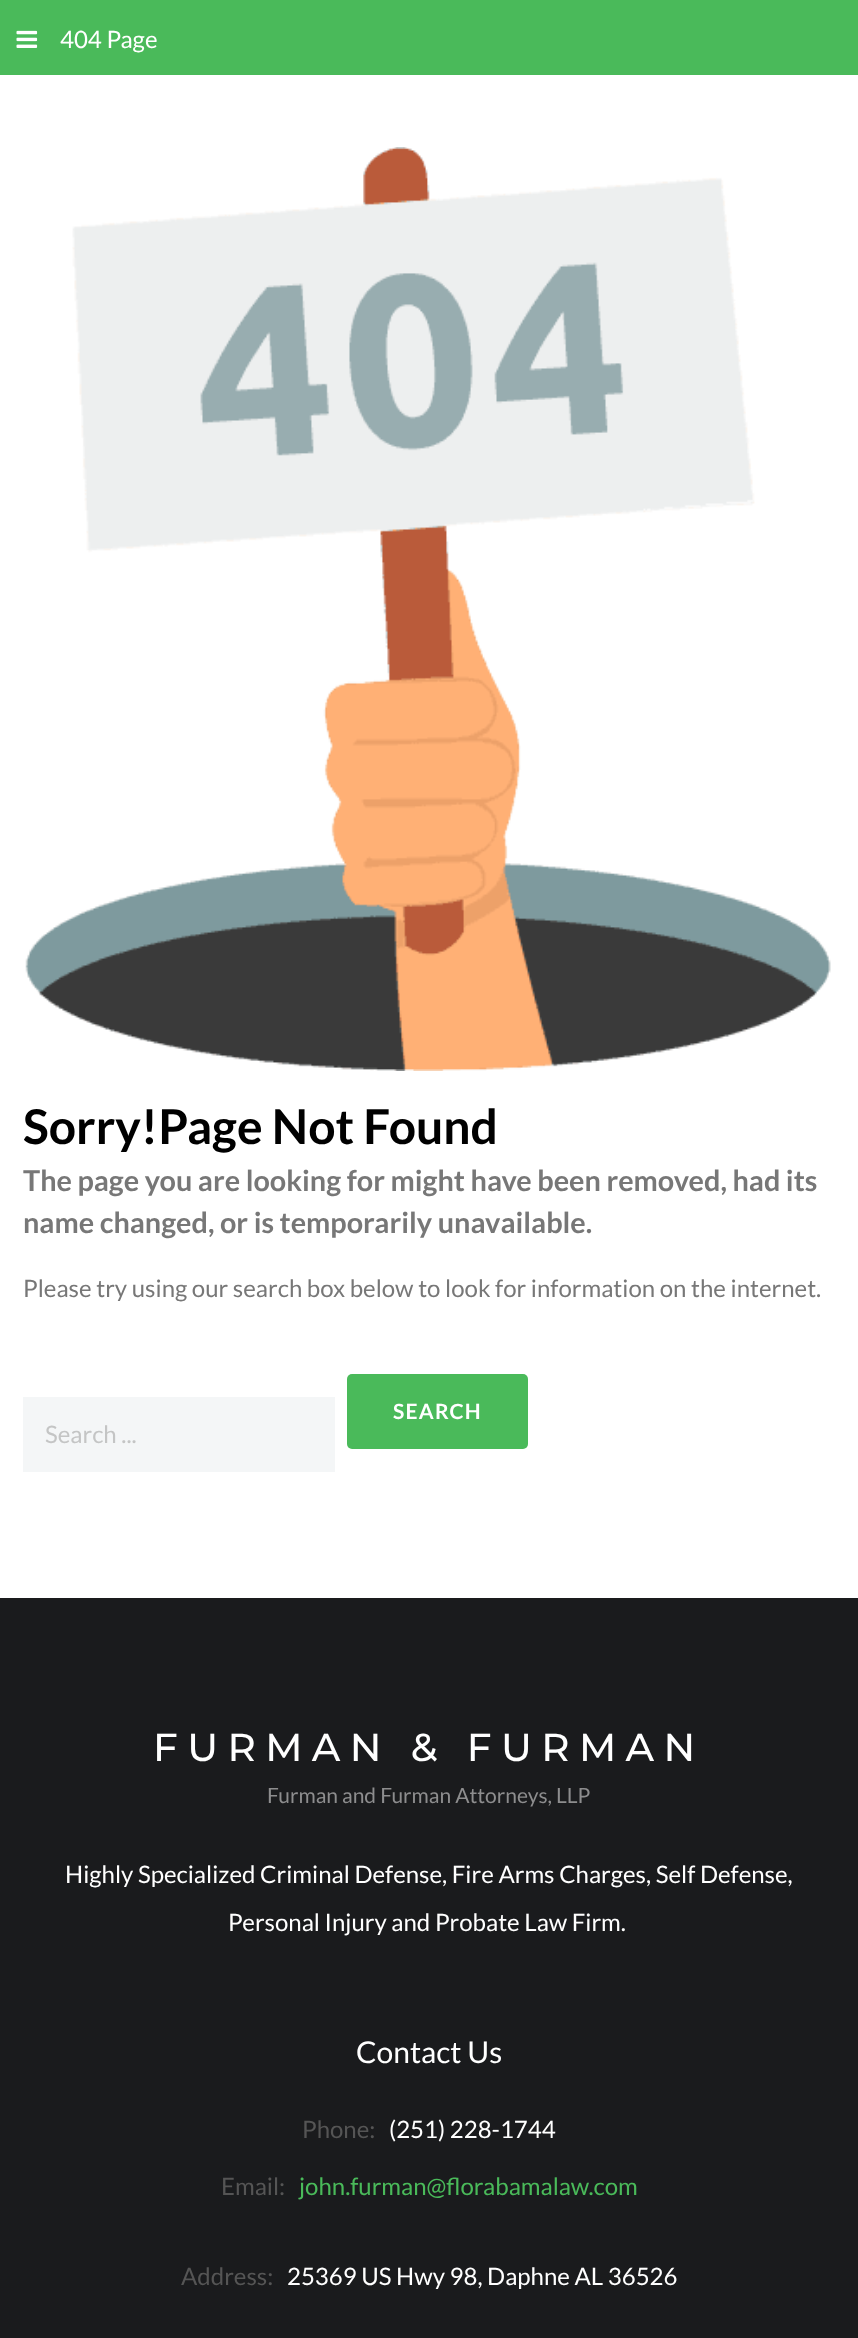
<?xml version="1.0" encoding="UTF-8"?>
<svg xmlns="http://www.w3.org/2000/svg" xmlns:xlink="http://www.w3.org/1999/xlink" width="858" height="2338">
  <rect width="100%" height="100%" fill="#ffffff" />
  <rect width="858" height="75" fill="#4aba5a" />
  <image x="16" y="30" width="22" height="18" xlink:href="image1.png" />
  <image x="25" y="147" width="806" height="924" xlink:href="image2.png" />
  <rect x="347" y="1374" width="181" height="75" rx="5" fill="#4aba5a" />
  <rect x="23" y="1397" width="312" height="75" fill="#f4f6f7" />
  <rect y="1598" width="858" height="740" fill="#1a1b1d" />
  <text x="60" y="48" style="font-family: Lato; font-size: 24px; fill: #ffffff">404 Page</text>
  <text x="23" y="1144" style="font-family: Lato; font-size: 48px; font-weight: bold; fill: #000000">Sorry!Page Not Found</text>
  <text x="23" y="1191" style="font-family: Lato; font-size: 28.8px; font-weight: bold; fill: #777777">The page you are looking for might have been removed, had its</text>
  <text x="23" y="1233" style="font-family: Lato; font-size: 28.8px; font-weight: bold; fill: #777777">name changed, or is temporarily unavailable.</text>
  <text x="23" y="1297" style="font-family: Lato; font-size: 24px; fill: #777777">Please try using our search box below to look for information on the internet.</text>
  <text x="393" y="1419" style="font-family: Lato; font-size: 21px; font-weight: bold; letter-spacing: 1.25px; fill: #ffffff">SEARCH</text>
  <text x="45" y="1443" style="font-family: Lato; font-size: 24px; fill: #c4c5c5">Search ...</text>
  <text x="153" y="1761" style="font-family: Montserrat; font-size: 39px; font-weight: 500; letter-spacing: 9.4px; fill: #ffffff">FURMAN &amp; FURMAN</text>
  <text x="267" y="1803" style="font-family: Lato; font-size: 21px; fill: #8d8d8e">Furman and Furman Attorneys, LLP</text>
  <text x="65" y="1883" style="font-family: Lato; font-size: 24px; fill: #ffffff">Highly Specialized Criminal Defense, Fire Arms Charges, Self Defense,</text>
  <text x="228" y="1931" style="font-family: Lato; font-size: 24px; fill: #ffffff">Personal Injury and Probate Law Firm.</text>
  <text x="356" y="2063" style="font-family: Lato; font-size: 30px; fill: #ffffff">Contact Us</text>
  <text x="302" y="2138" style="font-family: Lato; font-size: 24px; fill: #555555">Phone:</text>
  <text x="389" y="2138" style="font-family: Lato; font-size: 24px; fill: #ffffff">(251) 228-1744</text>
  <text x="221" y="2195" style="font-family: Lato; font-size: 24px; fill: #555555">Email:</text>
  <text x="299" y="2195" style="font-family: Lato; font-size: 24px; fill: #4aba5a">john.furman@florabamalaw.com</text>
  <text x="181" y="2285" style="font-family: Lato; font-size: 24px; fill: #555555">Address:</text>
  <text x="287" y="2285" style="font-family: Lato; font-size: 24px; fill: #ffffff">25369 US Hwy 98, Daphne AL 36526</text>
</svg>
